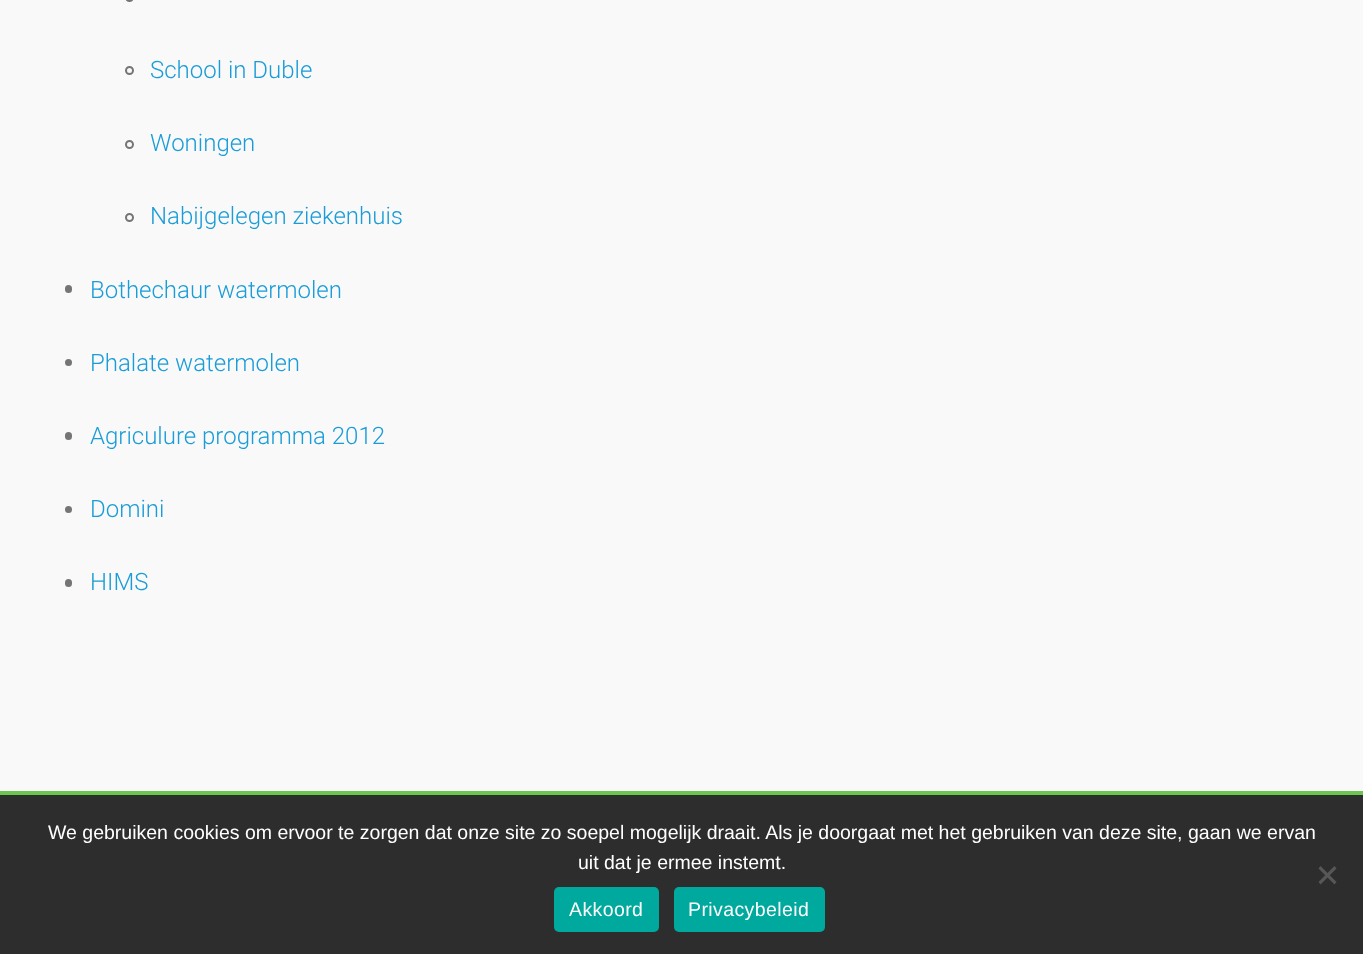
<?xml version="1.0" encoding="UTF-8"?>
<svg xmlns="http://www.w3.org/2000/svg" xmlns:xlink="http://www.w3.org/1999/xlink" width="1363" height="954">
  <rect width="100%" height="100%" fill="#f9f9f9" />
  <circle cx="129.5" cy="-2.5" r="3.5" fill="none" stroke="#757575" stroke-width="2" />
  <circle cx="129.5" cy="70.5" r="3.5" fill="none" stroke="#757575" stroke-width="2" />
  <circle cx="129.5" cy="144.5" r="3.5" fill="none" stroke="#757575" stroke-width="2" />
  <circle cx="129.5" cy="217.5" r="3.5" fill="none" stroke="#757575" stroke-width="2" />
  <rect x="65" y="285" width="7" height="8" rx="3.5" fill="#757575" />
  <circle cx="68.5" cy="362.5" r="3.5" fill="#757575" />
  <rect x="65" y="432" width="7" height="8" rx="3.5" fill="#757575" />
  <circle cx="68.5" cy="509.5" r="3.5" fill="#757575" />
  <rect x="65" y="579" width="7" height="8" rx="3.5" fill="#757575" />
  <rect y="791" width="1363" height="4" fill="#6dc450" />
  <rect y="795" width="1363" height="159" fill="#2d2d2d" />
  <path d="M 1334.5 866 l 2 2.5 l -16 16 l -2 -2.5 z" fill="#575757" />
  <path d="M 1318.5 868.5 l 2 -2.5 l 16 16 l -2 2.5 z" fill="#575757" />
  <rect x="554" y="887" width="105" height="45" rx="5" fill="#00a99d" />
  <rect x="674" y="887" width="151" height="45" rx="5" fill="#00a99d" />
  <text x="150" y="78" style="font-family: Roboto; font-size: 24px; font-weight: 300; fill: #199cd8">School in Duble</text>
  <text x="150" y="151" style="font-family: Roboto; font-size: 24px; font-weight: 300; fill: #199cd8">Woningen</text>
  <text x="150" y="224" style="font-family: Roboto; font-size: 24px; font-weight: 300; fill: #199cd8">Nabijgelegen ziekenhuis</text>
  <text x="90" y="298" style="font-family: Roboto; font-size: 24px; font-weight: 300; fill: #199cd8">Bothechaur watermolen</text>
  <text x="90" y="371" style="font-family: Roboto; font-size: 24px; font-weight: 300; fill: #199cd8">Phalate watermolen</text>
  <text x="90" y="444" style="font-family: Roboto; font-size: 24px; font-weight: 300; fill: #199cd8">Agriculure programma 2012</text>
  <text x="90" y="517" style="font-family: Roboto; font-size: 24px; font-weight: 300; fill: #199cd8">Domini</text>
  <text x="90" y="590" style="font-family: Roboto; font-size: 24px; font-weight: 300; fill: #199cd8">HIMS</text>
  <text x="48" y="839" style="font-family: Liberation Sans; font-size: 19.5px; fill: #ffffff">We gebruiken cookies om ervoor te zorgen dat onze site zo soepel mogelijk draait. Als je doorgaat met het gebruiken van deze site, gaan we ervan</text>
  <text x="578" y="869" style="font-family: Liberation Sans; font-size: 19.5px; fill: #ffffff">uit dat je ermee instemt.</text>
  <text x="569" y="916" style="font-family: Liberation Sans; font-size: 19.5px; letter-spacing: 0.4px; fill: #ffffff">Akkoord</text>
  <text x="688" y="916" style="font-family: Liberation Sans; font-size: 19.5px; letter-spacing: 0.4px; fill: #ffffff">Privacybeleid</text>
</svg>
